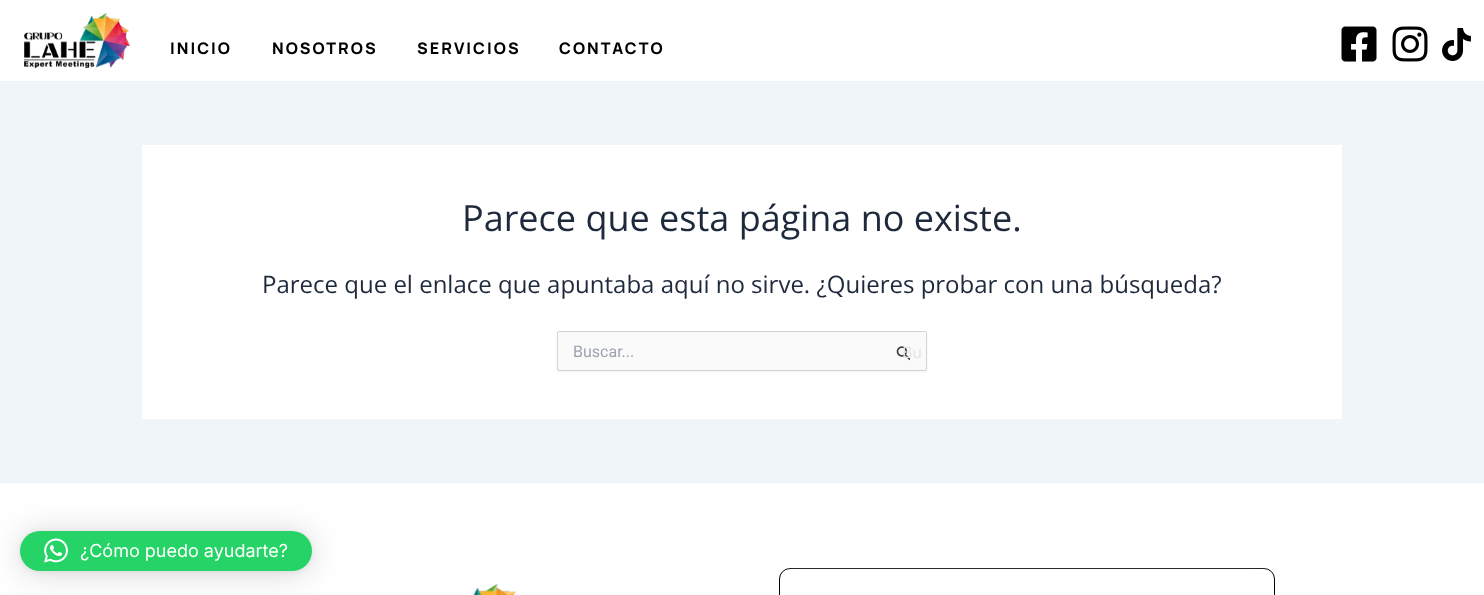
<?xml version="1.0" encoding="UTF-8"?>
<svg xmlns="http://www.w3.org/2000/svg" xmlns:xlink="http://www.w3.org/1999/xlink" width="1484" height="595">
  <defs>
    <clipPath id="clip1"><path d="M 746 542 h 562 v 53 h -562 z m 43 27 h 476 c 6.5 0 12 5.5 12 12 v 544 c 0 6.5 -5.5 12 -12 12 h -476 c -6.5 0 -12 -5.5 -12 -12 v -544 c 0 -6.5 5.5 -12 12 -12 z" clip-rule="evenodd" /></clipPath>
  </defs>
  <rect width="100%" height="100%" fill="#f0f5fa" />
  <rect width="1484" height="81" fill="#ffffff" />
  <image x="24" y="13" width="106" height="55" xlink:href="image1.png" />
  <image x="1341" y="26" width="36" height="36" xlink:href="image2.png" />
  <image x="1392" y="26" width="36" height="36" xlink:href="image3.png" />
  <image x="1442" y="28" width="29" height="33" xlink:href="image4.png" />
  <rect x="142" y="145" width="1200" height="274" fill="#ffffff" />
  <rect x="557" y="332" width="370" height="40" rx="2" fill="#000000" fill-opacity="0.05" filter="blur(1px)" />
  <rect x="557.5" y="331.5" width="369" height="39" rx="1.5" fill="#fafafa" stroke="#d1d5db" />
  <image x="896" y="346" width="14" height="15" xlink:href="image5.png" />
  <rect y="483" width="1484" height="112" fill="#ffffff" />
  <image x="473" y="584" width="43" height="11" xlink:href="image6.png" />
  <rect x="779.5" y="568.5" width="495" height="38" rx="10.5" fill="none" stroke="#000000" />
  <g clip-path="url(#clip1)">
    <rect x="777" y="573" width="500" height="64" rx="12" fill="#ffffff" fill-opacity="0.5" filter="blur(10px)" />
  </g>
  <rect x="20" y="533" width="292" height="40" rx="20" fill="#000000" fill-opacity="0.16" filter="blur(16px)" />
  <rect x="20" y="532" width="292" height="40" rx="20" fill="#000000" fill-opacity="0.06" filter="blur(3px)" />
  <rect x="20" y="531" width="292" height="40" rx="20" fill="#25d366" />
  <image x="44" y="538" width="24" height="25" xlink:href="image7.png" />
  <text x="170" y="54" style="font-family: Manrope; font-size: 16px; font-weight: 800; letter-spacing: 2px; fill: #000000">INICIO</text>
  <text x="272" y="54" style="font-family: Manrope; font-size: 16px; font-weight: 800; letter-spacing: 2px; fill: #000000">NOSOTROS</text>
  <text x="417" y="54" style="font-family: Manrope; font-size: 16px; font-weight: 800; letter-spacing: 2px; fill: #000000">SERVICIOS</text>
  <text x="559" y="54" style="font-family: Manrope; font-size: 16px; font-weight: 800; letter-spacing: 2px; fill: #000000">CONTACTO</text>
  <text x="462" y="231" style="font-family: Open Sans; font-size: 36px; fill: #1e293b">Parece que esta página no existe.</text>
  <text x="262" y="293" style="font-family: Open Sans; font-size: 24px; fill: #1e293b">Parece que el enlace que apuntaba aquí no sirve. ¿Quieres probar con una búsqueda?</text>
  <text x="573" y="357" style="font-family: Roboto; font-size: 16px; fill: #9ca3af">Buscar...</text>
  <text x="902" y="358" style="font-family: Open Sans; font-size: 16px; fill: #e4e4e4">Bu</text>
  <text x="80" y="557" style="font-family: Inter; font-size: 18px; fill: #ffffff">¿Cómo puedo ayudarte?</text>
</svg>
